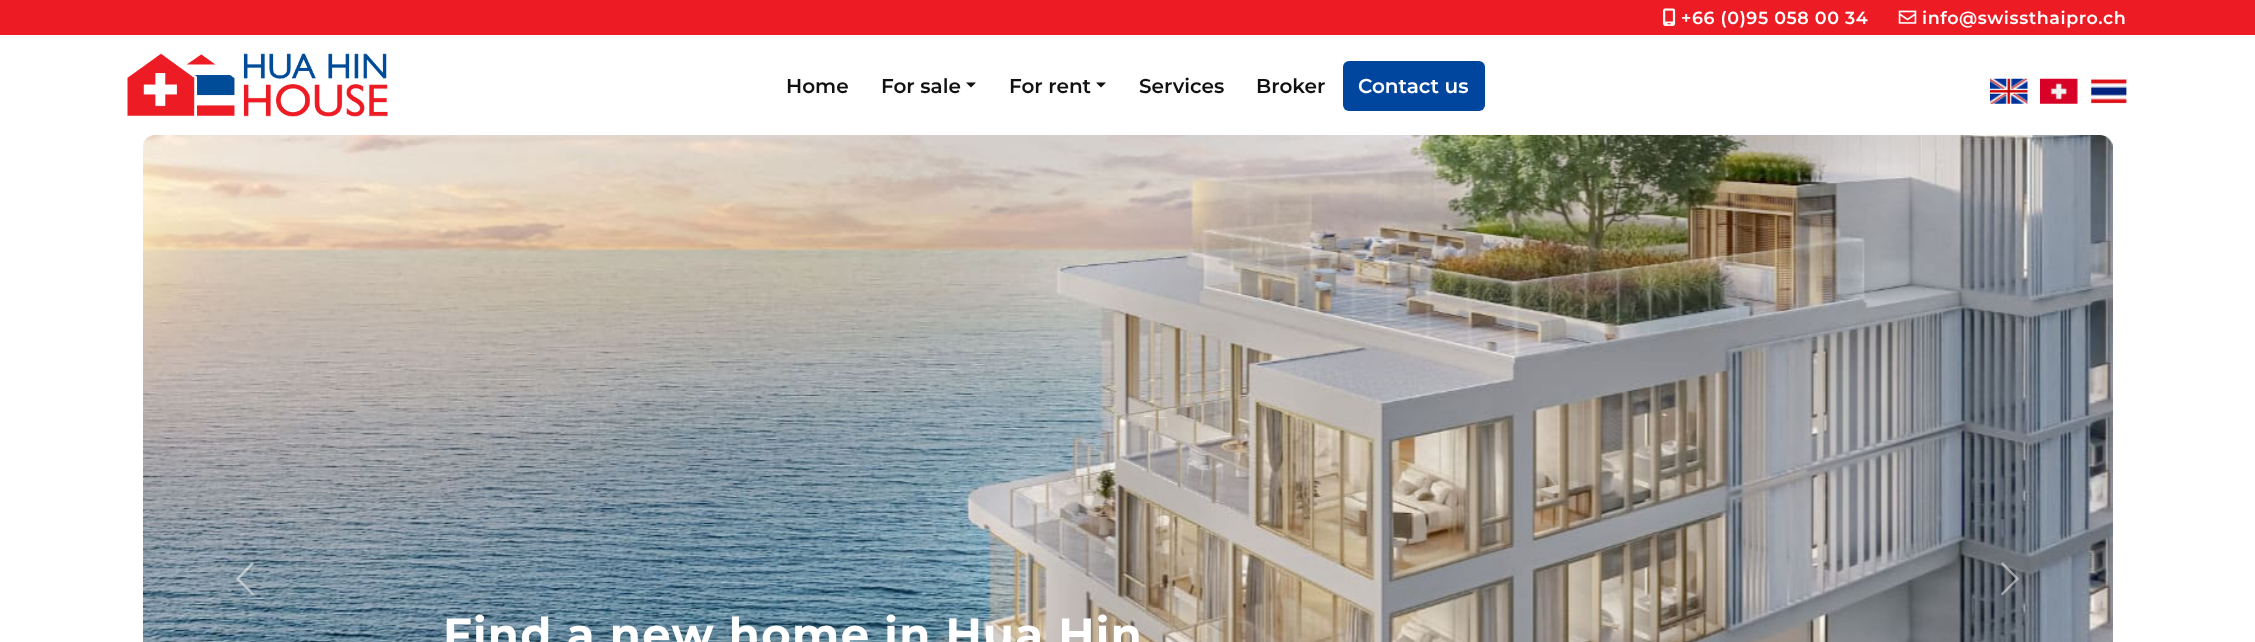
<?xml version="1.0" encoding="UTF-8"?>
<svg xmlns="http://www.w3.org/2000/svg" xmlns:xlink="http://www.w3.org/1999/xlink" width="2255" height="642">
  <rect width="100%" height="100%" fill="#ffffff" />
  <rect width="2255" height="35" fill="#ed1c24" />
  <image x="1663" y="8" width="13" height="18" xlink:href="image1.png" />
  <image x="1898" y="10" width="19" height="14" xlink:href="image2.png" />
  <image x="127" y="53" width="261" height="64" xlink:href="image3.png" />
  <path d="M 966 82.5 h 10 l -5 5 z" fill="#111111" />
  <path d="M 1096 82.5 h 10 l -5 5 z" fill="#111111" />
  <rect x="1343" y="61" width="142" height="50" rx="6" fill="#00469e" />
  <image x="1990" y="78" width="38" height="26" xlink:href="image4.png" />
  <image x="2040" y="78" width="38" height="26" xlink:href="image5.png" />
  <image x="2091" y="79" width="36" height="25" xlink:href="image6.png" />
  <image x="143" y="135" width="1970" height="507" xlink:href="image7.png" />
  <image x="236" y="562" width="18" height="33" xlink:href="image8.png" />
  <image x="2001" y="562" width="18" height="33" xlink:href="image9.png" />
  <text x="1681" y="24" style="font-family: Montserrat; font-size: 17.5px; font-weight: 600; letter-spacing: 0.6px; fill: #ffffff">+66 (0)95 058 00 34</text>
  <text x="1922" y="24" style="font-family: Montserrat; font-size: 17.5px; font-weight: 600; letter-spacing: 0.6px; fill: #ffffff">info@swissthaipro.ch</text>
  <text x="786" y="93" style="font-family: Montserrat; font-size: 20px; font-weight: 600; fill: #111111">Home</text>
  <text x="881" y="93" style="font-family: Montserrat; font-size: 20px; font-weight: 600; fill: #111111">For sale</text>
  <text x="1009" y="93" style="font-family: Montserrat; font-size: 20px; font-weight: 600; fill: #111111">For rent</text>
  <text x="1139" y="93" style="font-family: Montserrat; font-size: 20px; font-weight: 600; fill: #111111">Services</text>
  <text x="1256" y="93" style="font-family: Montserrat; font-size: 20px; font-weight: 600; fill: #111111">Broker</text>
  <text x="1358" y="93" style="font-family: Montserrat; font-size: 20px; font-weight: 600; fill: #ffffff">Contact us</text>
  <text x="443" y="650" style="font-family: Montserrat; font-size: 45px; font-weight: bold; letter-spacing: 1.25px; fill: #ffffff">Find a new home in Hua Hin</text>
</svg>
